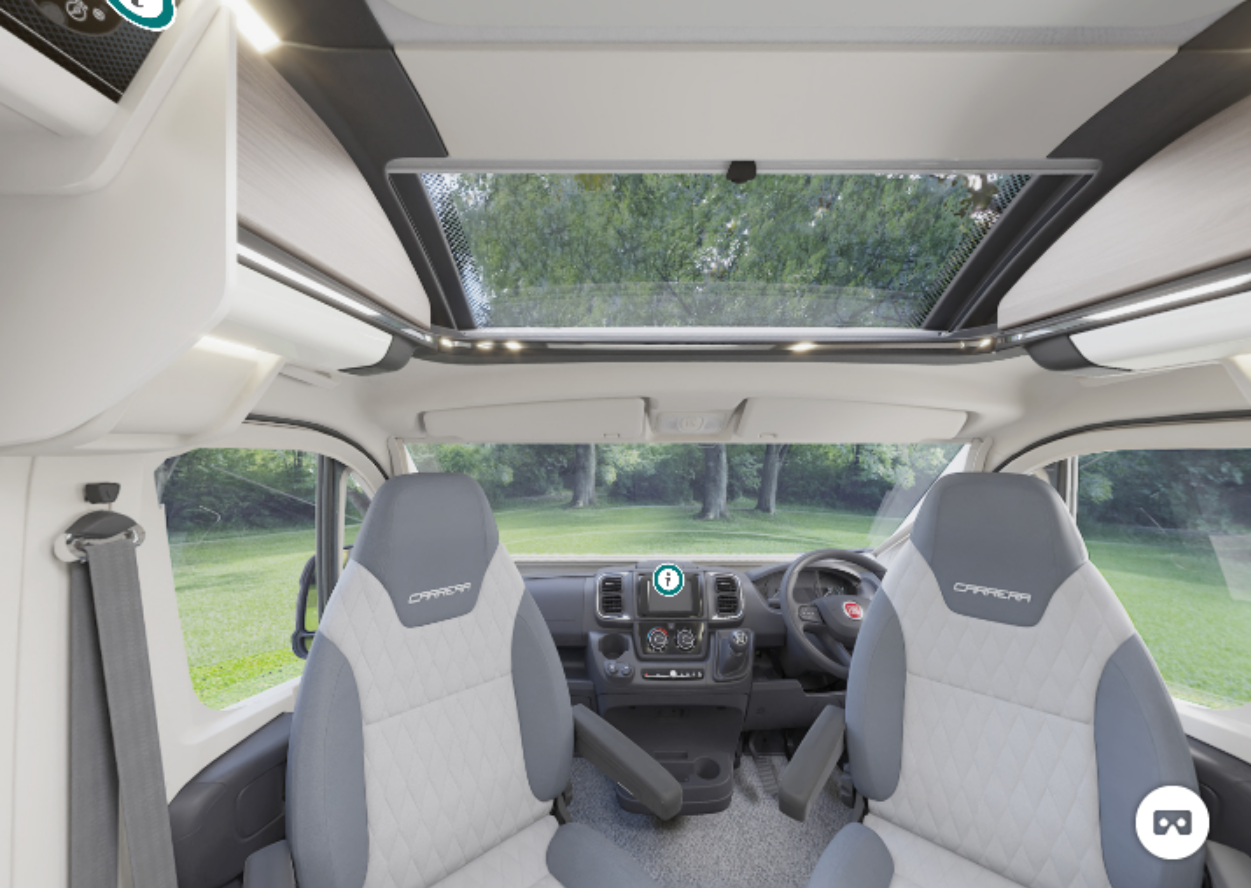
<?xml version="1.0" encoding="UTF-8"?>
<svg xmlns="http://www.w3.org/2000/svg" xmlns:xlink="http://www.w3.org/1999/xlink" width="1251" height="888">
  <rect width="100%" height="100%" fill="#ffffff" />
  <image x="0" y="0" width="1251" height="888" xlink:href="image1.png" />
  <image x="1130" y="780" width="83" height="85" xlink:href="image2.png" />
</svg>
